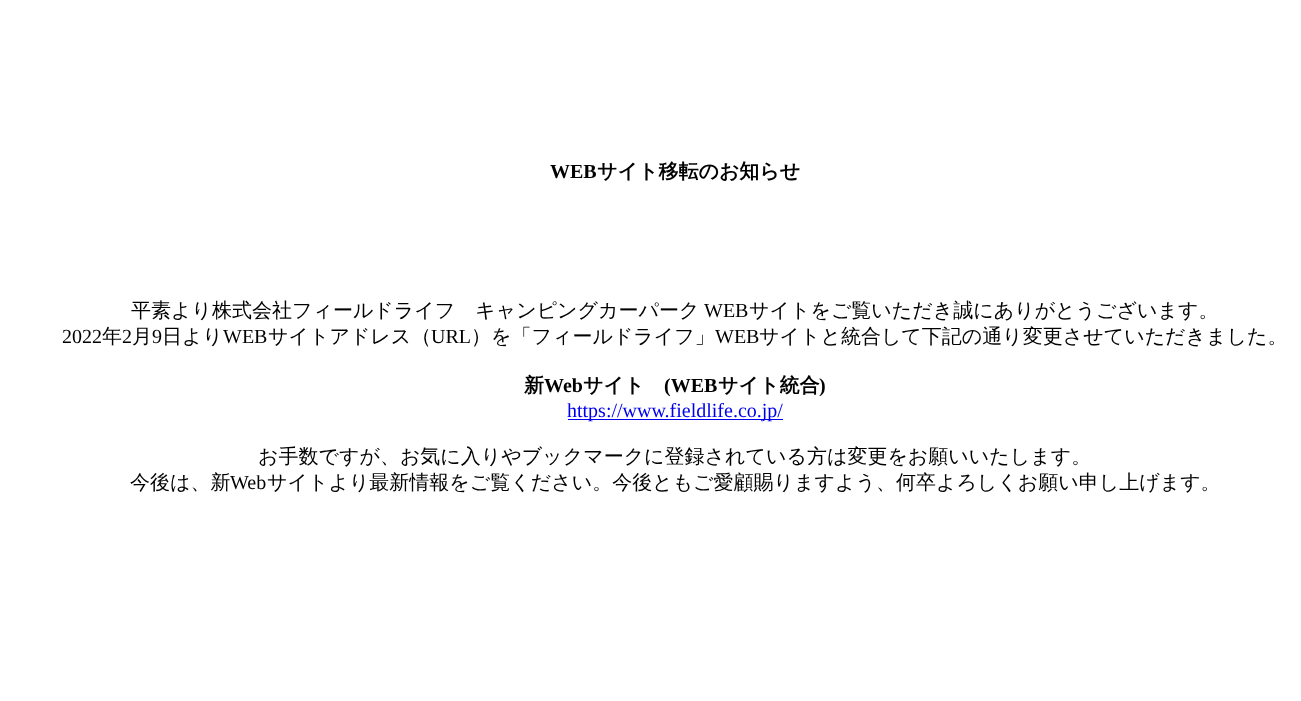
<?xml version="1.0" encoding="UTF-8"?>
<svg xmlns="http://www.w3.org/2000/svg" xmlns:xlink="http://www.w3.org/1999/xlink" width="1301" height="701">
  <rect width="100%" height="100%" fill="#ffffff" />
  <rect x="568" y="419" width="215" height="1" fill="#0000ee" />
  <text x="550" y="178" style="font-family: Liberation Serif; font-size: 20px; font-weight: bold; fill: #000000">WEB</text>
  <text x="597" y="178" style="font-family: WenQuanYi Zen Hei; font-size: 20px; font-weight: bold; fill: #000000">サイト移転のお知らせ</text>
  <text x="131" y="317" style="font-family: WenQuanYi Zen Hei; font-size: 20px; font-weight: 500; fill: #000000">平素より株式会社フィールドライフ　キャンピングカーパーク</text>
  <text x="704" y="317" style="font-family: Liberation Serif; font-size: 20px; fill: #000000">WEB</text>
  <text x="749" y="317" style="font-family: WenQuanYi Zen Hei; font-size: 20px; font-weight: 500; fill: #000000">サイトをご覧いただき誠にありがとうございます。</text>
  <text x="62" y="343" style="font-family: Liberation Serif; font-size: 20px; fill: #000000">2022</text>
  <text x="102" y="343" style="font-family: WenQuanYi Zen Hei; font-size: 20px; font-weight: 500; fill: #000000">年</text>
  <text x="122" y="343" style="font-family: Liberation Serif; font-size: 20px; fill: #000000">2</text>
  <text x="132" y="343" style="font-family: WenQuanYi Zen Hei; font-size: 20px; font-weight: 500; fill: #000000">月</text>
  <text x="152" y="343" style="font-family: Liberation Serif; font-size: 20px; fill: #000000">9</text>
  <text x="162" y="343" style="font-family: WenQuanYi Zen Hei; font-size: 20px; font-weight: 500; fill: #000000">日より</text>
  <text x="223" y="343" style="font-family: Liberation Serif; font-size: 20px; fill: #000000">WEB</text>
  <text x="268" y="343" style="font-family: WenQuanYi Zen Hei; font-size: 20px; font-weight: 500; fill: #000000">サイトアドレス（</text>
  <text x="431" y="343" style="font-family: Liberation Serif; font-size: 20px; fill: #000000">URL</text>
  <text x="471" y="343" style="font-family: WenQuanYi Zen Hei; font-size: 20px; font-weight: 500; fill: #000000">）を「フィールドライフ」</text>
  <text x="715" y="343" style="font-family: Liberation Serif; font-size: 20px; fill: #000000">WEB</text>
  <text x="759" y="343" style="font-family: WenQuanYi Zen Hei; font-size: 20px; font-weight: 500; fill: #000000">サイトと統合して下記の通り変更させていただきました。</text>
  <text x="524" y="392" style="font-family: WenQuanYi Zen Hei; font-size: 20px; font-weight: bold; fill: #000000">新</text>
  <text x="544" y="392" style="font-family: Liberation Serif; font-size: 20px; font-weight: bold; fill: #000000">Web</text>
  <text x="583" y="392" style="font-family: WenQuanYi Zen Hei; font-size: 20px; font-weight: bold; fill: #000000">サイト</text>
  <text x="664" y="392" style="font-family: Liberation Serif; font-size: 20px; font-weight: bold; fill: #000000">(WEB</text>
  <text x="718" y="392" style="font-family: WenQuanYi Zen Hei; font-size: 20px; font-weight: bold; fill: #000000">サイト統合</text>
  <text x="819" y="392" style="font-family: Liberation Serif; font-size: 20px; font-weight: bold; fill: #000000">)</text>
  <text x="567" y="417" style="font-family: Liberation Serif; font-size: 20px; fill: #0000ee">https://www.fieldlife.co.jp/</text>
  <text x="258" y="463" style="font-family: WenQuanYi Zen Hei; font-size: 20px; font-weight: 500; fill: #000000">お手数ですが、お気に入りやブックマークに登録されている方は変更をお願いいたします。</text>
  <text x="130" y="489" style="font-family: WenQuanYi Zen Hei; font-size: 20px; font-weight: 500; fill: #000000">今後は、新</text>
  <text x="230" y="489" style="font-family: Liberation Serif; font-size: 20px; fill: #000000">Web</text>
  <text x="267" y="489" style="font-family: WenQuanYi Zen Hei; font-size: 20px; font-weight: 500; fill: #000000">サイトより最新情報をご覧ください。今後ともご愛顧賜りますよう、何卒よろしくお願い申し上げます。</text>
</svg>
